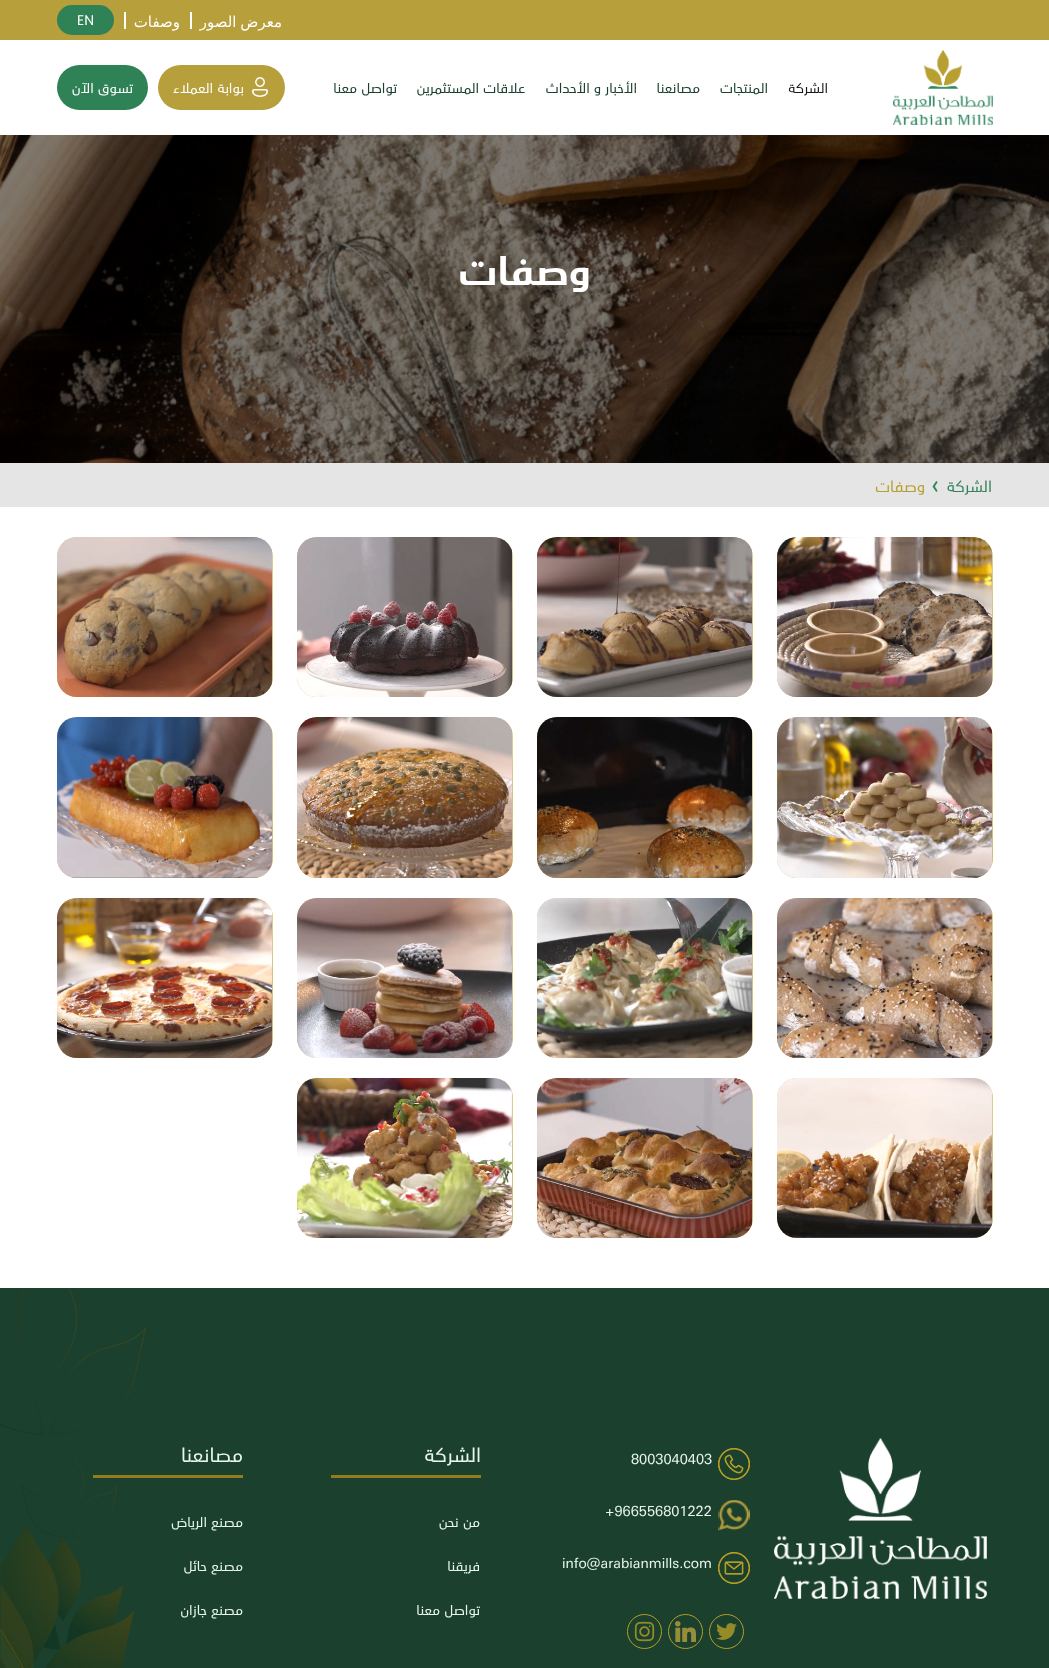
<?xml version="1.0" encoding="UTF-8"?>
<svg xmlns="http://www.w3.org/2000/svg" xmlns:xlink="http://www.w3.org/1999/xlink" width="1049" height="1668">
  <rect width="100%" height="100%" fill="#ffffff" />
  <rect width="1049" height="40" fill="#b79f3c" />
  <rect x="190" y="12" width="2" height="17" fill="#ffffff" />
  <rect x="124" y="12" width="2" height="17" fill="#ffffff" />
  <rect x="57" y="5" width="57" height="30" rx="15" fill="#2f8156" />
  <image x="893" y="50" width="100" height="75" xlink:href="image1.png" />
  <rect x="158" y="65" width="127" height="45" rx="22.5" fill="#b79f3c" />
  <image x="252" y="77" width="16" height="20" xlink:href="image2.png" />
  <rect x="57" y="65" width="91" height="45" rx="22.5" fill="#2f8156" />
  <image x="0" y="135" width="1049" height="328" xlink:href="image3.png" />
  <rect y="463" width="1049" height="44" fill="#e5e5e5" />
  <image x="932" y="481" width="6" height="11" xlink:href="image4.png" />
  <image x="777" y="537" width="216" height="160" xlink:href="image5.png" />
  <rect x="777" y="537" width="216" height="160" rx="20" fill="#ebe1be" fill-opacity="0.4" />
  <image x="777" y="537" width="215" height="160" xlink:href="image6.png" />
  <image x="537" y="537" width="216" height="160" xlink:href="image5.png" />
  <rect x="537" y="537" width="216" height="160" rx="20" fill="#ebe1be" fill-opacity="0.4" />
  <image x="537" y="537" width="215" height="160" xlink:href="image7.png" />
  <image x="297" y="537" width="216" height="160" xlink:href="image8.png" />
  <rect x="297" y="537" width="216" height="160" rx="20" fill="#ebe1be" fill-opacity="0.4" />
  <image x="297" y="537" width="215" height="160" xlink:href="image9.png" />
  <image x="57" y="537" width="216" height="160" xlink:href="image10.png" />
  <rect x="57" y="537" width="216" height="160" rx="20" fill="#ebe1be" fill-opacity="0.4" />
  <image x="57" y="537" width="215" height="160" xlink:href="image11.png" />
  <image x="777" y="717" width="216" height="161" xlink:href="image12.png" />
  <rect x="777" y="717" width="216" height="161" rx="20" fill="#ebe1be" fill-opacity="0.4" />
  <image x="777" y="717" width="215" height="161" xlink:href="image13.png" />
  <image x="537" y="717" width="216" height="161" xlink:href="image12.png" />
  <rect x="537" y="717" width="216" height="161" rx="20" fill="#ebe1be" fill-opacity="0.4" />
  <image x="537" y="717" width="215" height="161" xlink:href="image14.png" />
  <image x="297" y="717" width="216" height="161" xlink:href="image15.png" />
  <rect x="297" y="717" width="216" height="161" rx="20" fill="#ebe1be" fill-opacity="0.4" />
  <image x="297" y="717" width="215" height="161" xlink:href="image16.png" />
  <image x="57" y="717" width="216" height="161" xlink:href="image17.png" />
  <rect x="57" y="717" width="216" height="161" rx="20" fill="#ebe1be" fill-opacity="0.4" />
  <image x="57" y="717" width="215" height="161" xlink:href="image18.png" />
  <image x="777" y="898" width="216" height="160" xlink:href="image19.png" />
  <rect x="777" y="898" width="216" height="160" rx="20" fill="#ebe1be" fill-opacity="0.4" />
  <image x="777" y="898" width="215" height="160" xlink:href="image20.png" />
  <image x="537" y="898" width="216" height="160" xlink:href="image19.png" />
  <rect x="537" y="898" width="216" height="160" rx="20" fill="#ebe1be" fill-opacity="0.4" />
  <image x="537" y="898" width="215" height="160" xlink:href="image21.png" />
  <image x="297" y="898" width="216" height="160" xlink:href="image22.png" />
  <rect x="297" y="898" width="216" height="160" rx="20" fill="#ebe1be" fill-opacity="0.4" />
  <image x="297" y="898" width="215" height="160" xlink:href="image23.png" />
  <image x="57" y="898" width="216" height="160" xlink:href="image24.png" />
  <rect x="57" y="898" width="216" height="160" rx="20" fill="#ebe1be" fill-opacity="0.4" />
  <image x="57" y="898" width="215" height="160" xlink:href="image25.png" />
  <image x="777" y="1078" width="216" height="160" xlink:href="image26.png" />
  <rect x="777" y="1078" width="216" height="160" rx="20" fill="#ebe1be" fill-opacity="0.4" />
  <image x="777" y="1078" width="215" height="160" xlink:href="image27.png" />
  <image x="537" y="1078" width="216" height="160" xlink:href="image26.png" />
  <rect x="537" y="1078" width="216" height="160" rx="20" fill="#ebe1be" fill-opacity="0.4" />
  <image x="537" y="1078" width="215" height="160" xlink:href="image28.png" />
  <image x="297" y="1078" width="216" height="160" xlink:href="image29.png" />
  <rect x="297" y="1078" width="216" height="160" rx="20" fill="#ebe1be" fill-opacity="0.4" />
  <image x="297" y="1078" width="215" height="160" xlink:href="image30.png" />
  <rect y="1288" width="1049" height="380" fill="#1b412e" />
  <image x="774" y="1438" width="213" height="161" xlink:href="image31.png" />
  <image x="718" y="1448" width="32" height="32" xlink:href="image32.png" />
  <image x="718" y="1500" width="32" height="31" xlink:href="image33.png" />
  <image x="718" y="1552" width="32" height="32" xlink:href="image34.png" />
  <circle cx="726.5" cy="1631.5" r="17" fill="none" stroke="#b49d25" />
  <image x="716" y="1623" width="21" height="17" xlink:href="image35.png" />
  <circle cx="685.5" cy="1631.5" r="17" fill="none" stroke="#b49d25" />
  <image x="675" y="1621" width="21" height="21" xlink:href="image36.png" />
  <circle cx="644.5" cy="1631.5" r="17" fill="none" stroke="#b49d25" />
  <image x="634" y="1621" width="21" height="21" xlink:href="image37.png" />
  <rect x="331" y="1475" width="150" height="3" fill="#947b1d" />
  <image x="0" y="1288" width="146" height="380" xlink:href="image38.png" />
  <rect x="93" y="1475" width="150" height="3" fill="#947b1d" />
  <text x="282" y="27" word-spacing="-1" style="font-family: DejaVu Sans; font-size: 15px; direction: rtl; fill: #ffffff">معرض الصور</text>
  <text x="180" y="27" style="font-family: DejaVu Sans; font-size: 15px; direction: rtl; fill: #ffffff">وصفات</text>
  <text x="77" y="25" style="font-family: Poppins; font-size: 14px; fill: #ffffff">EN</text>
  <text x="828" y="93" style="font-family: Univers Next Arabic; font-size: 14px; direction: rtl; fill: #1a1a1a">الشركة</text>
  <text x="768" y="93" style="font-family: Univers Next Arabic; font-size: 14px; direction: rtl; fill: #1b412e">المنتجات</text>
  <text x="700" y="93" style="font-family: Univers Next Arabic; font-size: 14px; direction: rtl; fill: #1b412e">مصانعنا</text>
  <text x="637" y="93" style="font-family: Univers Next Arabic; font-size: 14px; direction: rtl; fill: #1b412e">الأخبار و الأحداث</text>
  <text x="525" y="93" style="font-family: Univers Next Arabic; font-size: 14px; direction: rtl; fill: #1b412e">علاقات المستثمرين</text>
  <text x="397" y="93" style="font-family: Univers Next Arabic; font-size: 14px; direction: rtl; fill: #1b412e">تواصل معنا</text>
  <text x="244" y="93" style="font-family: Univers Next Arabic; font-size: 14px; direction: rtl; fill: #ffffff">بوابة العملاء</text>
  <text x="133" y="93" style="font-family: Univers Next Arabic; font-size: 14px; direction: rtl; fill: #ffffff">تسوق الآن</text>
  <text x="591" y="285" style="font-family: Univers Next Arabic; font-size: 40px; font-weight: bold; direction: rtl; fill: #ffffff">وصفات</text>
  <text x="992" y="492" style="font-family: Univers Next Arabic; font-size: 16px; direction: rtl; fill: #37835c">الشركة</text>
  <text x="925" y="492" style="font-family: Univers Next Arabic; font-size: 16px; direction: rtl; fill: #b7a031">وصفات</text>
  <text x="631" y="1464" style="font-family: Univers Next Arabic; font-size: 14px; fill: #e8f6ee">8003040403</text>
  <text x="605" y="1516" style="font-family: Univers Next Arabic; font-size: 14px; fill: #e8f6ee">+966556801222</text>
  <text x="562" y="1568" style="font-family: Univers Next Arabic; font-size: 14px; fill: #e8f6ee">info@arabianmills.com</text>
  <text x="481" y="1462" style="font-family: Univers Next Arabic; font-size: 20px; direction: rtl; fill: #e8f6ee">الشركة</text>
  <text x="480" y="1527" style="font-family: Univers Next Arabic; font-size: 14px; direction: rtl; fill: #e8f6ee">من نحن</text>
  <text x="480" y="1571" style="font-family: Univers Next Arabic; font-size: 14px; direction: rtl; fill: #e8f6ee">فريقنا</text>
  <text x="480" y="1615" style="font-family: Univers Next Arabic; font-size: 14px; direction: rtl; fill: #e8f6ee">تواصل معنا</text>
  <text x="243" y="1462" style="font-family: Univers Next Arabic; font-size: 20px; direction: rtl; fill: #e8f6ee">مصانعنا</text>
  <text x="243" y="1527" style="font-family: Univers Next Arabic; font-size: 14px; direction: rtl; fill: #e8f6ee">مصنع الرياض</text>
  <text x="243" y="1571" style="font-family: Univers Next Arabic; font-size: 14px; direction: rtl; fill: #e8f6ee">مصنع حائل</text>
  <text x="243" y="1615" style="font-family: Univers Next Arabic; font-size: 14px; direction: rtl; fill: #e8f6ee">مصنع جازان</text>
</svg>
